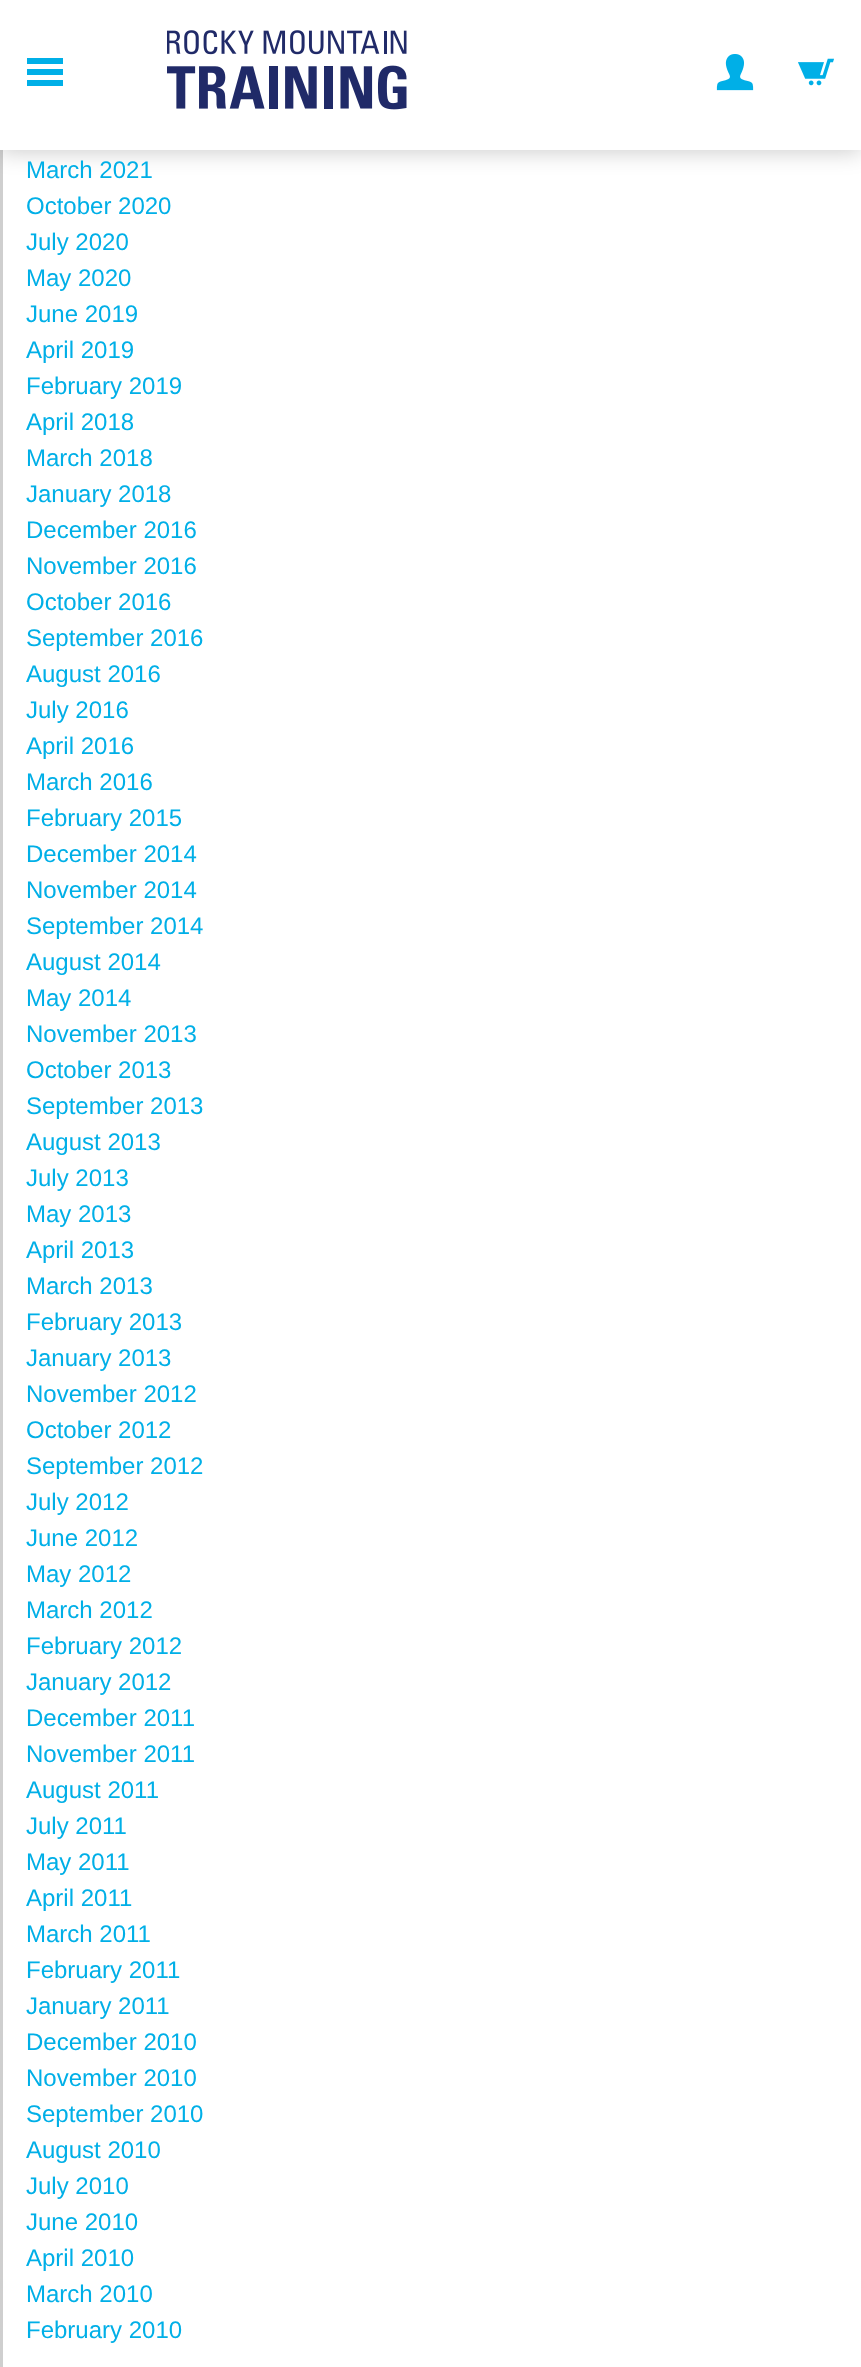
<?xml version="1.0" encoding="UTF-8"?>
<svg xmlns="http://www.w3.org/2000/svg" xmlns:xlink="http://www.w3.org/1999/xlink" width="861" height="2367">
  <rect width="100%" height="100%" fill="#ffffff" />
  <rect y="150" width="3" height="2217" fill="#cfcfcf" />
  <rect y="2" width="861" height="150" fill="#000000" fill-opacity="0.2" filter="blur(11px)" />
  <rect width="861" height="150" fill="#ffffff" />
  <path d="M 63 64 h -36 v -6 h 36 z m 0 5 h -36 v 6 h 36 z m 0 11 h -36 v 6 h 36 z" fill="#00afe7" />
  <image x="167" y="30" width="240" height="80" xlink:href="image1.png" />
  <image x="716" y="54" width="38" height="37" xlink:href="image2.png" />
  <image x="798" y="58" width="36" height="28" xlink:href="image3.png" />
  <text x="26" y="178" style="font-family: Liberation Sans; font-size: 24px; fill: #00afe7">March 2021</text>
  <text x="26" y="214" style="font-family: Liberation Sans; font-size: 24px; fill: #00afe7">October 2020</text>
  <text x="26" y="250" style="font-family: Liberation Sans; font-size: 24px; fill: #00afe7">July 2020</text>
  <text x="26" y="286" style="font-family: Liberation Sans; font-size: 24px; fill: #00afe7">May 2020</text>
  <text x="26" y="322" style="font-family: Liberation Sans; font-size: 24px; fill: #00afe7">June 2019</text>
  <text x="26" y="358" style="font-family: Liberation Sans; font-size: 24px; fill: #00afe7">April 2019</text>
  <text x="26" y="394" style="font-family: Liberation Sans; font-size: 24px; fill: #00afe7">February 2019</text>
  <text x="26" y="430" style="font-family: Liberation Sans; font-size: 24px; fill: #00afe7">April 2018</text>
  <text x="26" y="466" style="font-family: Liberation Sans; font-size: 24px; fill: #00afe7">March 2018</text>
  <text x="26" y="502" style="font-family: Liberation Sans; font-size: 24px; fill: #00afe7">January 2018</text>
  <text x="26" y="538" style="font-family: Liberation Sans; font-size: 24px; fill: #00afe7">December 2016</text>
  <text x="26" y="574" style="font-family: Liberation Sans; font-size: 24px; fill: #00afe7">November 2016</text>
  <text x="26" y="610" style="font-family: Liberation Sans; font-size: 24px; fill: #00afe7">October 2016</text>
  <text x="26" y="646" style="font-family: Liberation Sans; font-size: 24px; fill: #00afe7">September 2016</text>
  <text x="26" y="682" style="font-family: Liberation Sans; font-size: 24px; fill: #00afe7">August 2016</text>
  <text x="26" y="718" style="font-family: Liberation Sans; font-size: 24px; fill: #00afe7">July 2016</text>
  <text x="26" y="754" style="font-family: Liberation Sans; font-size: 24px; fill: #00afe7">April 2016</text>
  <text x="26" y="790" style="font-family: Liberation Sans; font-size: 24px; fill: #00afe7">March 2016</text>
  <text x="26" y="826" style="font-family: Liberation Sans; font-size: 24px; fill: #00afe7">February 2015</text>
  <text x="26" y="862" style="font-family: Liberation Sans; font-size: 24px; fill: #00afe7">December 2014</text>
  <text x="26" y="898" style="font-family: Liberation Sans; font-size: 24px; fill: #00afe7">November 2014</text>
  <text x="26" y="934" style="font-family: Liberation Sans; font-size: 24px; fill: #00afe7">September 2014</text>
  <text x="26" y="970" style="font-family: Liberation Sans; font-size: 24px; fill: #00afe7">August 2014</text>
  <text x="26" y="1006" style="font-family: Liberation Sans; font-size: 24px; fill: #00afe7">May 2014</text>
  <text x="26" y="1042" style="font-family: Liberation Sans; font-size: 24px; fill: #00afe7">November 2013</text>
  <text x="26" y="1078" style="font-family: Liberation Sans; font-size: 24px; fill: #00afe7">October 2013</text>
  <text x="26" y="1114" style="font-family: Liberation Sans; font-size: 24px; fill: #00afe7">September 2013</text>
  <text x="26" y="1150" style="font-family: Liberation Sans; font-size: 24px; fill: #00afe7">August 2013</text>
  <text x="26" y="1186" style="font-family: Liberation Sans; font-size: 24px; fill: #00afe7">July 2013</text>
  <text x="26" y="1222" style="font-family: Liberation Sans; font-size: 24px; fill: #00afe7">May 2013</text>
  <text x="26" y="1258" style="font-family: Liberation Sans; font-size: 24px; fill: #00afe7">April 2013</text>
  <text x="26" y="1294" style="font-family: Liberation Sans; font-size: 24px; fill: #00afe7">March 2013</text>
  <text x="26" y="1330" style="font-family: Liberation Sans; font-size: 24px; fill: #00afe7">February 2013</text>
  <text x="26" y="1366" style="font-family: Liberation Sans; font-size: 24px; fill: #00afe7">January 2013</text>
  <text x="26" y="1402" style="font-family: Liberation Sans; font-size: 24px; fill: #00afe7">November 2012</text>
  <text x="26" y="1438" style="font-family: Liberation Sans; font-size: 24px; fill: #00afe7">October 2012</text>
  <text x="26" y="1474" style="font-family: Liberation Sans; font-size: 24px; fill: #00afe7">September 2012</text>
  <text x="26" y="1510" style="font-family: Liberation Sans; font-size: 24px; fill: #00afe7">July 2012</text>
  <text x="26" y="1546" style="font-family: Liberation Sans; font-size: 24px; fill: #00afe7">June 2012</text>
  <text x="26" y="1582" style="font-family: Liberation Sans; font-size: 24px; fill: #00afe7">May 2012</text>
  <text x="26" y="1618" style="font-family: Liberation Sans; font-size: 24px; fill: #00afe7">March 2012</text>
  <text x="26" y="1654" style="font-family: Liberation Sans; font-size: 24px; fill: #00afe7">February 2012</text>
  <text x="26" y="1690" style="font-family: Liberation Sans; font-size: 24px; fill: #00afe7">January 2012</text>
  <text x="26" y="1726" style="font-family: Liberation Sans; font-size: 24px; fill: #00afe7">December 2011</text>
  <text x="26" y="1762" style="font-family: Liberation Sans; font-size: 24px; fill: #00afe7">November 2011</text>
  <text x="26" y="1798" style="font-family: Liberation Sans; font-size: 24px; fill: #00afe7">August 2011</text>
  <text x="26" y="1834" style="font-family: Liberation Sans; font-size: 24px; fill: #00afe7">July 2011</text>
  <text x="26" y="1870" style="font-family: Liberation Sans; font-size: 24px; fill: #00afe7">May 2011</text>
  <text x="26" y="1906" style="font-family: Liberation Sans; font-size: 24px; fill: #00afe7">April 2011</text>
  <text x="26" y="1942" style="font-family: Liberation Sans; font-size: 24px; fill: #00afe7">March 2011</text>
  <text x="26" y="1978" style="font-family: Liberation Sans; font-size: 24px; fill: #00afe7">February 2011</text>
  <text x="26" y="2014" style="font-family: Liberation Sans; font-size: 24px; fill: #00afe7">January 2011</text>
  <text x="26" y="2050" style="font-family: Liberation Sans; font-size: 24px; fill: #00afe7">December 2010</text>
  <text x="26" y="2086" style="font-family: Liberation Sans; font-size: 24px; fill: #00afe7">November 2010</text>
  <text x="26" y="2122" style="font-family: Liberation Sans; font-size: 24px; fill: #00afe7">September 2010</text>
  <text x="26" y="2158" style="font-family: Liberation Sans; font-size: 24px; fill: #00afe7">August 2010</text>
  <text x="26" y="2194" style="font-family: Liberation Sans; font-size: 24px; fill: #00afe7">July 2010</text>
  <text x="26" y="2230" style="font-family: Liberation Sans; font-size: 24px; fill: #00afe7">June 2010</text>
  <text x="26" y="2266" style="font-family: Liberation Sans; font-size: 24px; fill: #00afe7">April 2010</text>
  <text x="26" y="2302" style="font-family: Liberation Sans; font-size: 24px; fill: #00afe7">March 2010</text>
  <text x="26" y="2338" style="font-family: Liberation Sans; font-size: 24px; fill: #00afe7">February 2010</text>
</svg>
